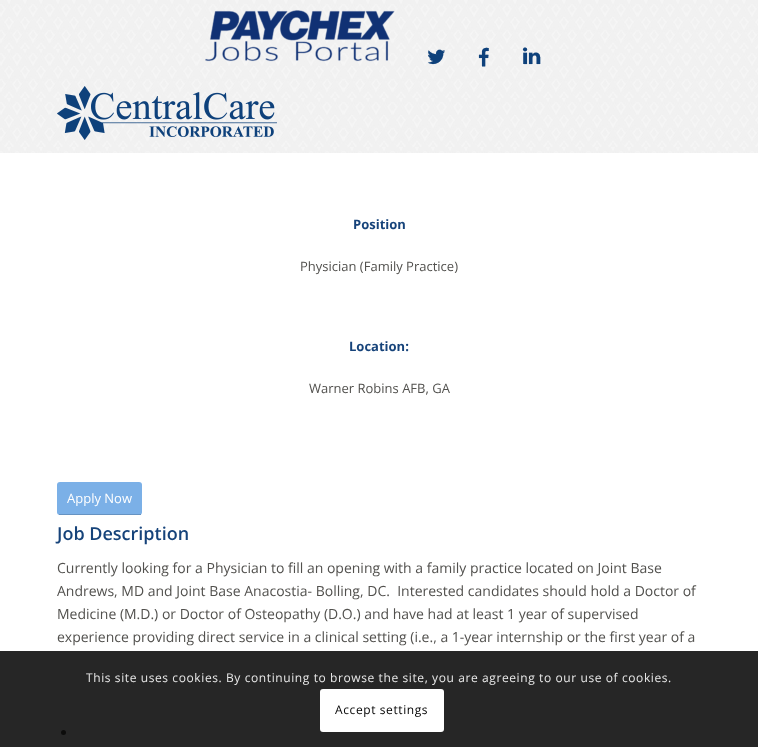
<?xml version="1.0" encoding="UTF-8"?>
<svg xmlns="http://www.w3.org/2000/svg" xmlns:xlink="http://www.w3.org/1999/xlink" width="758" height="747">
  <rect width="100%" height="100%" fill="#ffffff" />
  <image x="0" y="0" width="758" height="153" xlink:href="image1.png" />
  <image x="205" y="10" width="190" height="52" xlink:href="image2.png" />
  <image x="428" y="49" width="17" height="16" xlink:href="image3.png" />
  <image x="478" y="47" width="11" height="20" xlink:href="image4.png" />
  <image x="522" y="47" width="19" height="18" xlink:href="image5.png" />
  <image x="57" y="86" width="220" height="54" xlink:href="image6.png" />
  <rect x="57" y="482" width="85" height="33" rx="3" fill="#7bb0e7" />
  <rect x="59" y="514" width="82" height="1" fill="#6693c2" />
  <circle cx="63.5" cy="732.5" r="2.5" fill="#52514e" />
  <rect y="651" width="758" height="96" fill="#000000" fill-opacity="0.85" />
  <rect x="320" y="689" width="124" height="43" rx="3" fill="#ffffff" />
  <text x="353" y="229" style="font-family: Open Sans; font-size: 13px; font-weight: bold; fill: #16437a">Position</text>
  <text x="300" y="271" style="font-family: Open Sans; font-size: 13px; fill: #52514e">Physician (Family Practice)</text>
  <text x="349" y="351" style="font-family: Open Sans; font-size: 13px; font-weight: bold; fill: #16437a">Location:</text>
  <text x="309" y="393" style="font-family: Open Sans; font-size: 13px; fill: #52514e">Warner Robins AFB, GA</text>
  <text x="67" y="503" style="font-family: Open Sans; font-size: 13px; fill: #ffffff">Apply Now</text>
  <text x="57" y="540" style="font-family: Open Sans; font-size: 18px; font-weight: 600; fill: #16437a">Job Description</text>
  <text x="57" y="573" style="font-family: Open Sans; font-size: 14px; fill: #52514e">Currently looking for a Physician to fill an opening with a family practice located on Joint Base</text>
  <text x="57" y="596" style="font-family: Open Sans; font-size: 14px; fill: #52514e" xml:space="preserve">Andrews, MD and Joint Base Anacostia- Bolling, DC.  Interested candidates should hold a Doctor of</text>
  <text x="57" y="619" style="font-family: Open Sans; font-size: 14px; fill: #52514e">Medicine (M.D.) or Doctor of Osteopathy (D.O.) and have had at least 1 year of supervised</text>
  <text x="57" y="642" style="font-family: Open Sans; font-size: 14px; fill: #52514e">experience providing direct service in a clinical setting (i.e., a 1-year internship or the first year of a</text>
  <text x="86" y="682" style="font-family: Open Sans; font-size: 12px; letter-spacing: 0.6px; fill: #e9e9e9">This site uses cookies. By continuing to browse the site, you are agreeing to our use of cookies.</text>
  <text x="335" y="714" style="font-family: Open Sans; font-size: 12px; letter-spacing: 0.6px; fill: #000000">Accept settings</text>
</svg>
